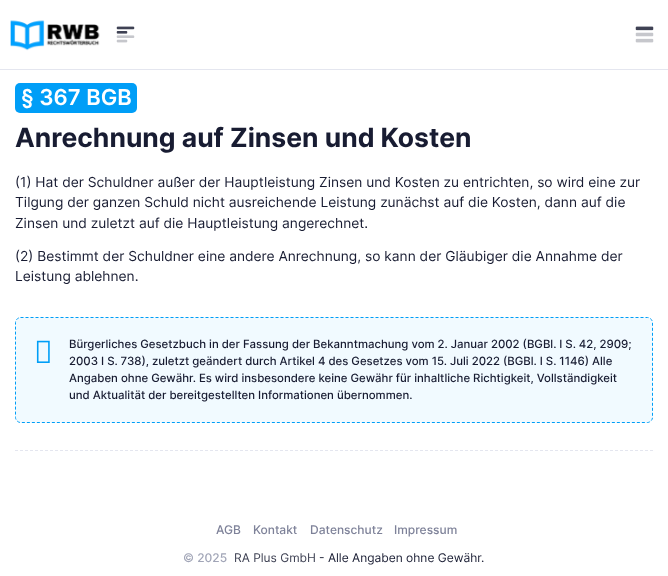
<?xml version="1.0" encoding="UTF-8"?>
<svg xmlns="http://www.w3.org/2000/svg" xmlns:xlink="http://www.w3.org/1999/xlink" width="668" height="576">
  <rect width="100%" height="100%" fill="#ffffff" />
  <rect y="69" width="668" height="1" fill="#e4e6ef" />
  <image x="10" y="20" width="90" height="31" xlink:href="image1.png" />
  <image x="116" y="26" width="19" height="17" xlink:href="image2.png" />
  <image x="635" y="26" width="19" height="17" xlink:href="image3.png" />
  <rect x="15" y="83" width="122" height="30" rx="5" fill="#009ef7" />
  <rect x="15" y="317" width="638" height="106" rx="6" fill="#f1faff" />
  <path d="M 20.5 317.5 h 627 c 2.5 0 5 2.5 5 5 v 95 c 0 2.5 -2.5 5 -5 5 h -627 c -2.5 0 -5 -2.5 -5 -5 v -95 c 0 -2.5 2.5 -5 5 -5 z" fill="none" stroke="#009ef7" stroke-dasharray="3 2" />
  <image x="36" y="340" width="14" height="23" xlink:href="image4.png" />
  <path d="M 15 450.5 h 638" fill="none" stroke="#e4e6ef" stroke-dasharray="3 2" />
  <text x="21" y="105" style="font-family: Inter; font-size: 22px; font-weight: 600; fill: #ffffff">§ 367 BGB</text>
  <text x="15" y="147" style="font-family: Inter; font-size: 26.5px; font-weight: bold; fill: #181c32">Anrechnung auf Zinsen und Kosten</text>
  <text x="15" y="187" style="font-family: Inter; font-size: 13.8px; fill: #181c32">(1) Hat der Schuldner außer der Hauptleistung Zinsen und Kosten zu entrichten, so wird eine zur</text>
  <text x="15" y="207" style="font-family: Inter; font-size: 13.8px; fill: #181c32">Tilgung der ganzen Schuld nicht ausreichende Leistung zunächst auf die Kosten, dann auf die</text>
  <text x="15" y="228" style="font-family: Inter; font-size: 13.8px; fill: #181c32">Zinsen und zuletzt auf die Hauptleistung angerechnet.</text>
  <text x="15" y="261" style="font-family: Inter; font-size: 13.8px; fill: #181c32">(2) Bestimmt der Schuldner eine andere Anrechnung, so kann der Gläubiger die Annahme der</text>
  <text x="15" y="281" style="font-family: Inter; font-size: 13.8px; fill: #181c32">Leistung ablehnen.</text>
  <text x="69" y="348" style="font-family: Inter; font-size: 11.4px; font-weight: 500; fill: #181c32">Bürgerliches Gesetzbuch in der Fassung der Bekanntmachung vom 2. Januar 2002 (BGBl. I S. 42, 2909;</text>
  <text x="69" y="365" style="font-family: Inter; font-size: 11.4px; font-weight: 500; fill: #181c32">2003 I S. 738), zuletzt geändert durch Artikel 4 des Gesetzes vom 15. Juli 2022 (BGBl. I S. 1146) Alle</text>
  <text x="69" y="382" style="font-family: Inter; font-size: 11.4px; font-weight: 500; fill: #181c32">Angaben ohne Gewähr. Es wird insbesondere keine Gewähr für inhaltliche Richtigkeit, Vollständigkeit</text>
  <text x="69" y="399" style="font-family: Inter; font-size: 11.4px; font-weight: 500; fill: #181c32">und Aktualität der bereitgestellten Informationen übernommen.</text>
  <text x="216" y="534" style="font-family: Inter; font-size: 12px; font-weight: 500; fill: #7e8299">AGB</text>
  <text x="253" y="534" style="font-family: Inter; font-size: 12px; font-weight: 500; fill: #7e8299">Kontakt</text>
  <text x="310" y="534" style="font-family: Inter; font-size: 12px; font-weight: 500; fill: #7e8299">Datenschutz</text>
  <text x="394" y="534" style="font-family: Inter; font-size: 12px; font-weight: 500; fill: #7e8299">Impressum</text>
  <text x="183" y="562" style="font-family: Inter; font-size: 12px; font-weight: 500; fill: #a1a5b7">© 2025</text>
  <text x="234" y="562" style="font-family: Inter; font-size: 12px; fill: #3f4254">RA Plus GmbH</text>
  <text x="319" y="562" style="font-family: Inter; font-size: 12px; fill: #181c32">- Alle Angaben ohne Gewähr.</text>
</svg>
